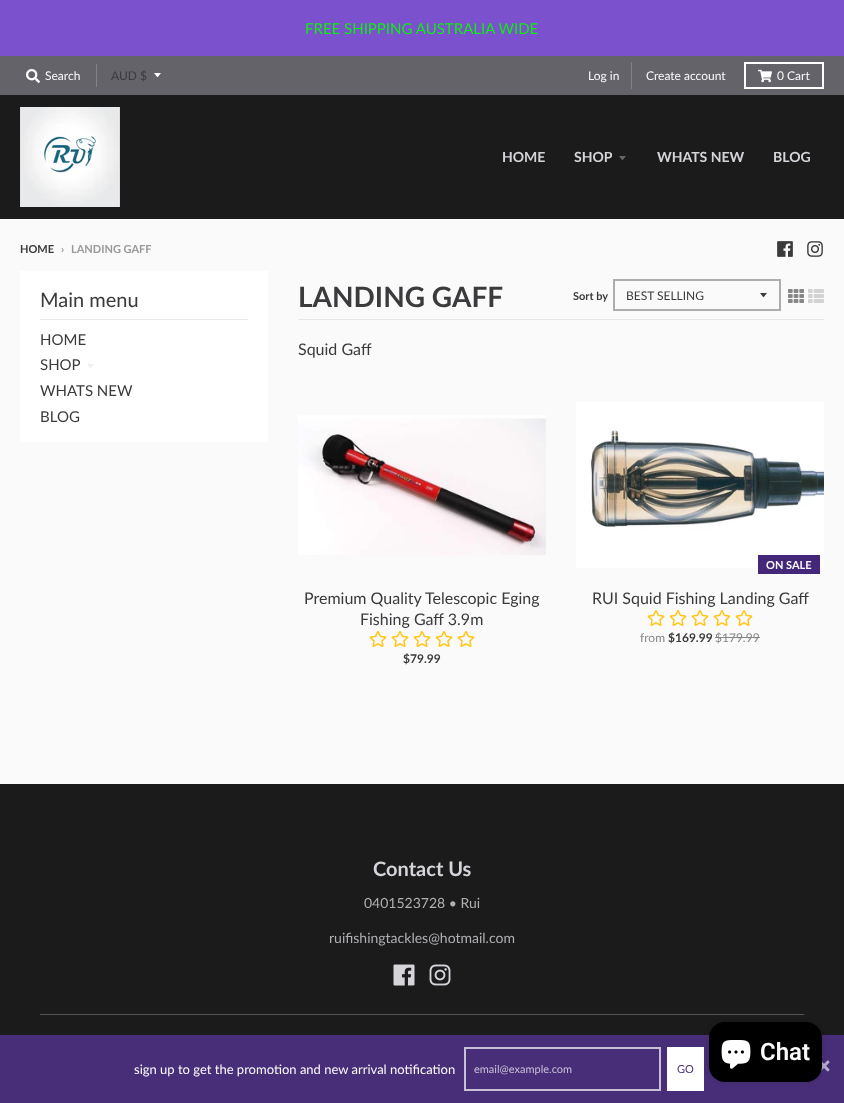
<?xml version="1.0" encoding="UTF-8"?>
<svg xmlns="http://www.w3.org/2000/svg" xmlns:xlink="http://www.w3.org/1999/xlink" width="844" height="1103">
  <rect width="100%" height="100%" fill="#fafafa" />
  <rect width="844" height="56" fill="#7c51cd" />
  <rect y="1035" width="844" height="68" fill="#482e78" />
  <rect x="465" y="1048" width="195" height="42" fill="none" stroke="#c8c0d7" stroke-width="2" />
  <rect x="667" y="1047" width="37" height="44" fill="#ffffff" />
  <image x="820" y="1060" width="10" height="12" xlink:href="image1.png" />
  <rect y="56" width="844" height="39" fill="#65636a" />
  <image x="26" y="69" width="14" height="14" xlink:href="image2.png" />
  <rect x="96" y="64" width="1" height="23" fill="#838287" />
  <path d="M 154 73 c 4.5 5.5 2.5 5.5 7 0 z" fill="#ffffff" />
  <rect x="631" y="62" width="1" height="27" fill="#838287" />
  <rect x="745" y="63" width="78" height="25" fill="none" stroke="#ffffff" stroke-width="2" />
  <image x="758" y="69" width="14" height="14" xlink:href="image3.png" />
  <rect y="95" width="844" height="124" fill="#1b1b1b" />
  <image x="20" y="107" width="100" height="100" xlink:href="image4.png" />
  <path d="M 619 156 c 4.5 5.5 2.5 5.5 7 0 z" fill="#666567" />
  <image x="777" y="241" width="16" height="16" xlink:href="image5.png" />
  <image x="807" y="241" width="16" height="16" xlink:href="image6.png" />
  <rect x="20" y="271" width="248" height="171" fill="#ffffff" />
  <rect x="40" y="319" width="208" height="1" fill="#ebebeb" />
  <path d="M 87 364 c 4.5 5.5 2.5 5.5 7 0 z" fill="#efeef0" />
  <rect x="298" y="319" width="526" height="1" fill="#e6e6e7" />
  <path d="M 760 293 c 4.5 5.5 2.5 5.5 7 0 z" fill="#3b3a3d" />
  <rect x="614" y="280" width="166" height="30" fill="none" stroke="#adadae" stroke-width="2" />
  <image x="788" y="289" width="16" height="14" xlink:href="image7.png" />
  <image x="808" y="289" width="16" height="14" xlink:href="image8.png" />
  <image x="298" y="415" width="248" height="140" xlink:href="image9.png" />
  <image x="369" y="631" width="18" height="16" xlink:href="image10.png" />
  <image x="391" y="631" width="18" height="16" xlink:href="image10.png" />
  <image x="413" y="631" width="18" height="16" xlink:href="image10.png" />
  <image x="435" y="631" width="18" height="16" xlink:href="image10.png" />
  <image x="457" y="631" width="18" height="16" xlink:href="image10.png" />
  <image x="576" y="402" width="248" height="166" xlink:href="image11.png" />
  <rect x="758" y="555" width="62" height="19" fill="#442778" />
  <image x="647" y="610" width="18" height="16" xlink:href="image10.png" />
  <image x="669" y="610" width="18" height="16" xlink:href="image10.png" />
  <image x="691" y="610" width="18" height="16" xlink:href="image10.png" />
  <image x="713" y="610" width="18" height="16" xlink:href="image10.png" />
  <image x="735" y="610" width="18" height="16" xlink:href="image10.png" />
  <rect x="715" y="637" width="45" height="1" fill="#878688" />
  <rect y="784" width="844" height="251" fill="#1b1b1b" />
  <rect x="40" y="1014" width="764" height="1" fill="#535254" />
  <image x="393" y="964" width="22" height="22" xlink:href="image12.png" />
  <image x="429" y="964" width="22" height="22" xlink:href="image13.png" />
  <rect x="709" y="1022" width="113" height="60" rx="16" fill="#000000" fill-opacity="0.15" filter="blur(2.5px)" />
  <rect x="709" y="1022" width="113" height="60" rx="16" fill="#000000" />
  <image x="721" y="1040" width="30" height="29" xlink:href="image14.png" />
  <text x="305" y="34" style="font-family: Lato; font-size: 15px; fill: #0cef0f">FREE SHIPPING AUSTRALIA WIDE</text>
  <text x="134" y="1074" style="font-family: Lato; font-size: 13px; fill: #fafafa">sign up to get the promotion and new arrival notification</text>
  <text x="474" y="1073" style="font-family: Lato; font-size: 11px; fill: #c8c0d7">email@example.com</text>
  <text x="677" y="1073" style="font-family: Lato; font-size: 11px; fill: #482e78">GO</text>
  <text x="45" y="80" style="font-family: Lato; font-size: 12px; fill: #fafafa">Search</text>
  <text x="111" y="80" style="font-family: Lato; font-size: 12px; fill: #3b3a3d">AUD $</text>
  <text x="588" y="80" style="font-family: Lato; font-size: 12px; fill: #fafafa">Log in</text>
  <text x="646" y="80" style="font-family: Lato; font-size: 12px; fill: #fafafa">Create account</text>
  <text x="777" y="80" style="font-family: Lato; font-size: 12px; fill: #fafafa">0 Cart</text>
  <text x="502" y="162" style="font-family: Lato; font-size: 14px; font-weight: bold; fill: #d6d4da">HOME</text>
  <text x="574" y="162" style="font-family: Lato; font-size: 14px; font-weight: bold; fill: #d6d4da">SHOP</text>
  <text x="657" y="162" style="font-family: Lato; font-size: 14px; font-weight: bold; fill: #d6d4da">WHATS NEW</text>
  <text x="773" y="162" style="font-family: Lato; font-size: 14px; font-weight: bold; fill: #d6d4da">BLOG</text>
  <text x="20" y="253" style="font-family: Lato; font-size: 11px; font-weight: bold; fill: #3b3a3d">HOME</text>
  <text x="61" y="253" style="font-family: Lato; font-size: 11px; font-weight: bold; fill: #9a9a9b">›</text>
  <text x="71" y="253" style="font-family: Lato; font-size: 11px; font-weight: bold; fill: #9a9a9b">LANDING GAFF</text>
  <text x="40" y="307" style="font-family: Lato; font-size: 20px; fill: #3b3a3d">Main menu</text>
  <text x="40" y="345" style="font-family: Lato; font-size: 15px; fill: #3b3a3d">HOME</text>
  <text x="40" y="370" style="font-family: Lato; font-size: 15px; fill: #3b3a3d">SHOP</text>
  <text x="40" y="396" style="font-family: Lato; font-size: 15px; fill: #3b3a3d">WHATS NEW</text>
  <text x="40" y="422" style="font-family: Lato; font-size: 15px; fill: #3b3a3d">BLOG</text>
  <text x="298" y="307" style="font-family: Lato; font-size: 28px; font-weight: bold; fill: #3b3a3d">LANDING GAFF</text>
  <text x="573" y="300" style="font-family: Lato; font-size: 11px; font-weight: bold; fill: #3b3a3d">Sort by</text>
  <text x="626" y="300" style="font-family: Lato; font-size: 12px; fill: #3b3a3d">BEST SELLING</text>
  <text x="298" y="355" style="font-family: Lato; font-size: 16px; fill: #3b3a3d">Squid Gaff</text>
  <text x="304" y="604" style="font-family: Lato; font-size: 16px; fill: #3b3a3d">Premium Quality Telescopic Eging</text>
  <text x="360" y="625" style="font-family: Lato; font-size: 16px; fill: #3b3a3d">Fishing Gaff 3.9m</text>
  <text x="403" y="663" style="font-family: Lato; font-size: 12px; font-weight: bold; fill: #3b3a3d">$79.99</text>
  <text x="766" y="569" style="font-family: Lato; font-size: 11px; font-weight: bold; fill: #fafafa">ON SALE</text>
  <text x="592" y="604" style="font-family: Lato; font-size: 16px; fill: #3b3a3d">RUI Squid Fishing Landing Gaff</text>
  <text x="640" y="642" style="font-family: Lato; font-size: 12px; fill: #878688">from</text>
  <text x="668" y="642" style="font-family: Lato; font-size: 12px; font-weight: bold; fill: #3b3a3d">$169.99</text>
  <text x="715" y="642" style="font-family: Lato; font-size: 12px; fill: #878688">$179.99</text>
  <text x="373" y="876" style="font-family: Lato; font-size: 20px; font-weight: bold; fill: #d6d4da">Contact Us</text>
  <text x="364" y="908" style="font-family: Lato; font-size: 14px; fill: #b0afb3">0401523728 • Rui</text>
  <text x="329" y="943" style="font-family: Lato; font-size: 14px; fill: #b0afb3">ruifishingtackles@hotmail.com</text>
  <text x="760" y="1060" style="font-family: Roboto; font-size: 24px; font-weight: 600; fill: #fafafa">Chat</text>
</svg>
